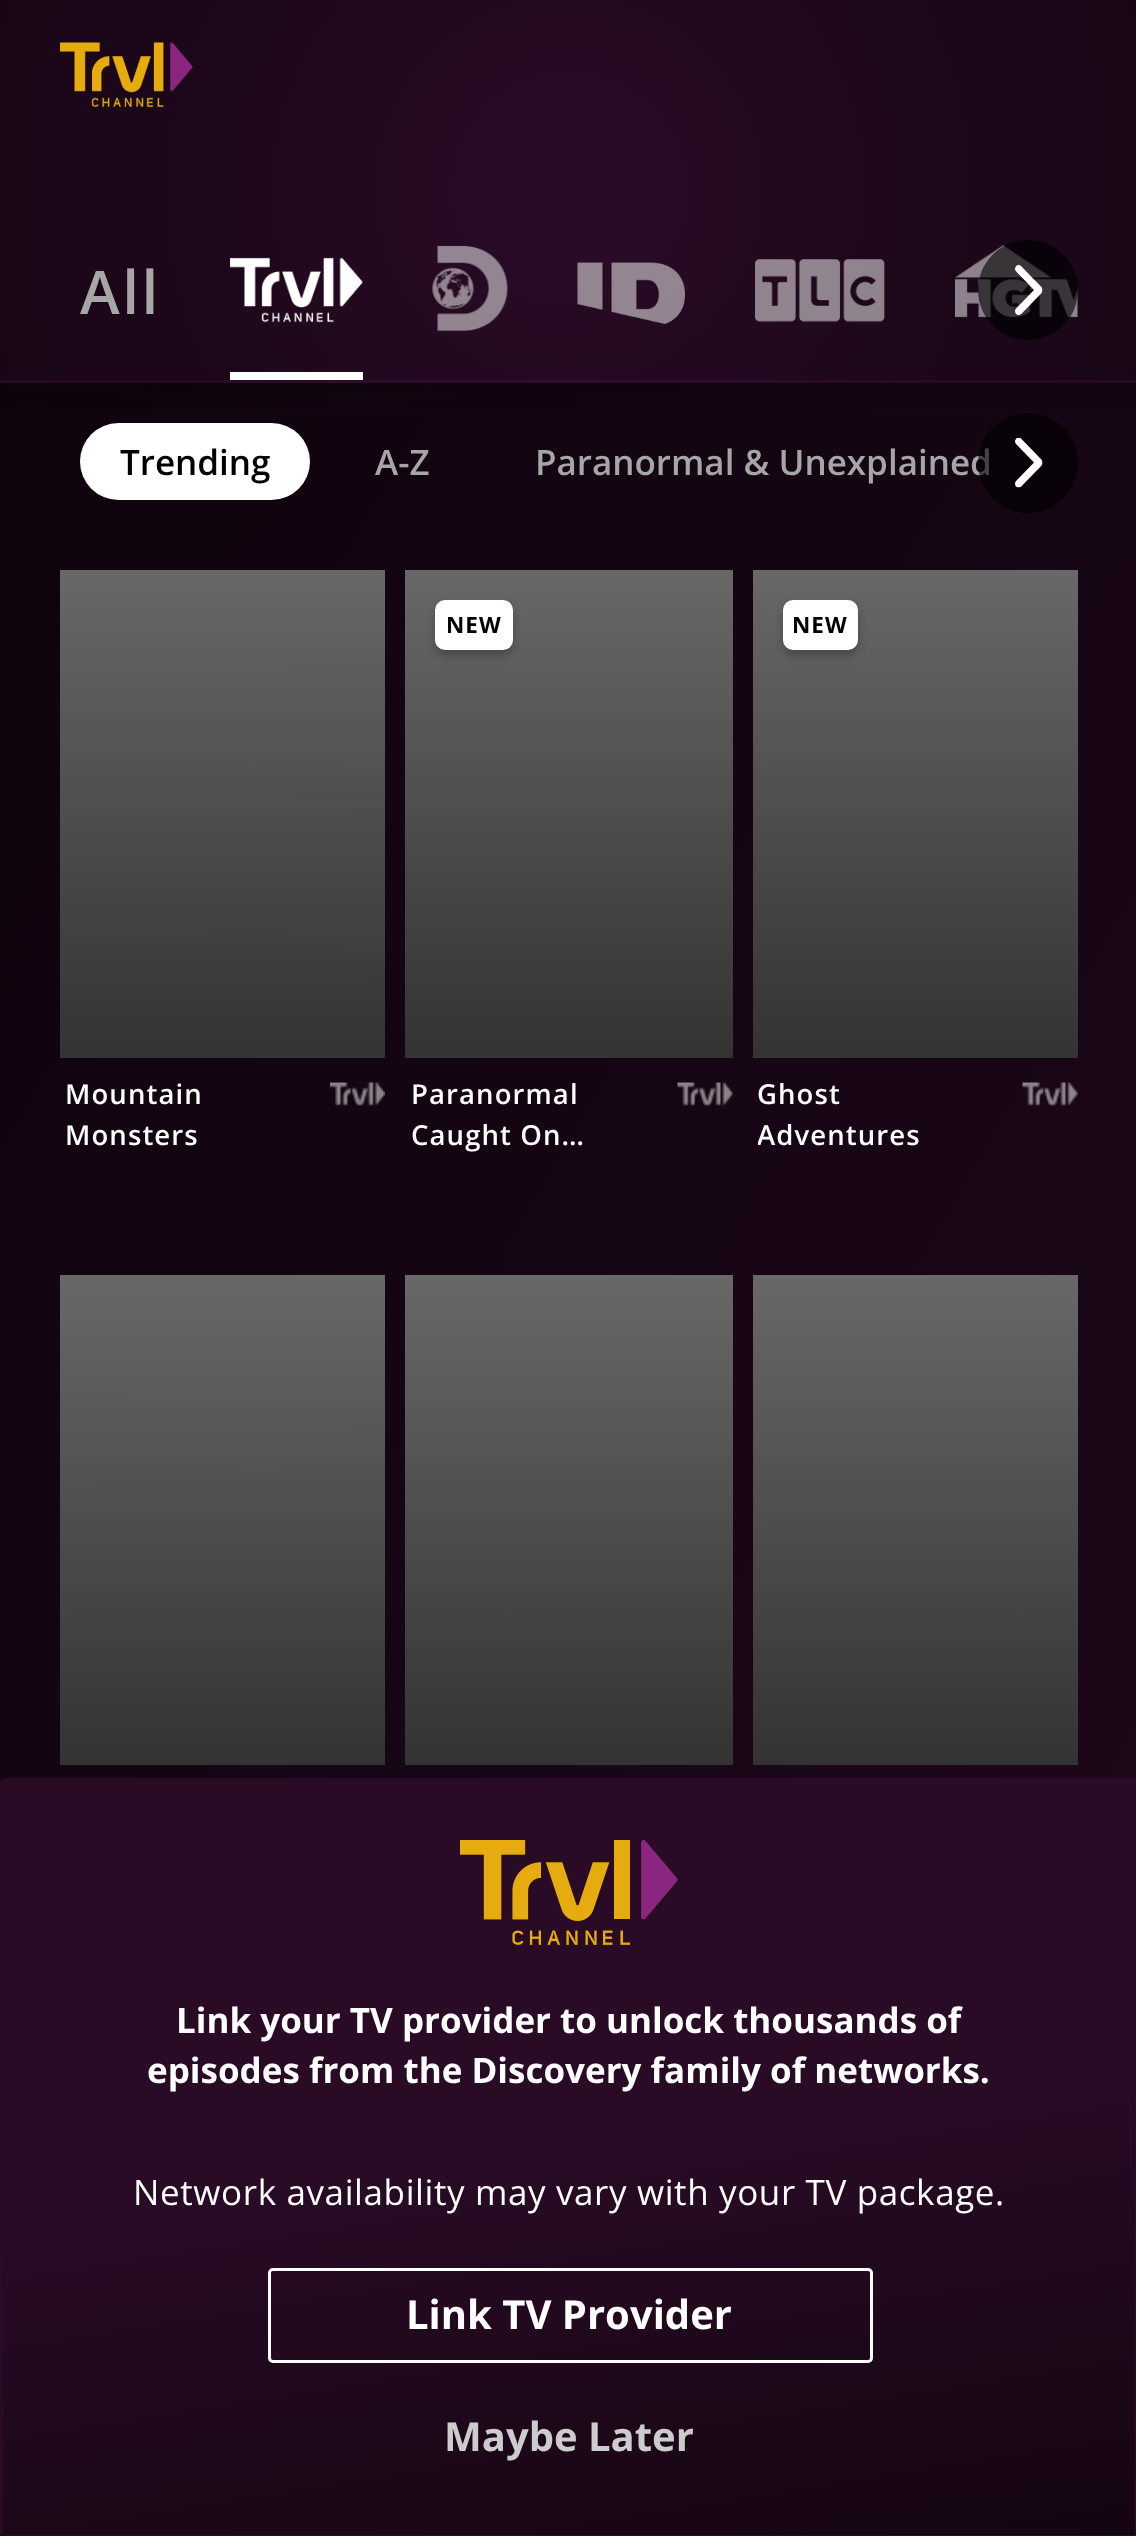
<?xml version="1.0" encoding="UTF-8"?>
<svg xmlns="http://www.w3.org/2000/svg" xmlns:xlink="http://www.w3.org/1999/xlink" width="1136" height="2536">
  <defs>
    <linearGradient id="g1" gradientUnits="userSpaceOnUse" x1="-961" y1="1665" x2="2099" y2="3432"><stop offset="0" stop-color="#0d030c" /><stop offset="1" stop-color="#290b25" /></linearGradient>
    <radialGradient id="g2" gradientUnits="userSpaceOnUse" cx="569" cy="190" r="840"><stop offset="0.06" stop-color="#290b25" /><stop offset="0.5" stop-color="#1b0719" /><stop offset="0.63" stop-color="#1b0719" /><stop offset="1" stop-color="#0d030c" /></radialGradient>
    <radialGradient id="g3" gradientUnits="userSpaceOnUse" cx="569" cy="570" r="840"><stop offset="0.06" stop-color="#290b25" /><stop offset="0.5" stop-color="#1b0719" /><stop offset="0.63" stop-color="#1b0719" /><stop offset="1" stop-color="#0d030c" /></radialGradient>
    <clipPath id="clip1"><rect x="230" y="200" width="133" height="180" /></clipPath>
    <linearGradient id="g4" gradientUnits="userSpaceOnUse" x1="222" y1="570" x2="223" y2="1058"><stop offset="0" stop-color="#686868" /><stop offset="1" stop-color="#333333" /></linearGradient>
    <linearGradient id="g5" gradientUnits="userSpaceOnUse" x1="569" y1="570" x2="569" y2="1058"><stop offset="0" stop-color="#686868" /><stop offset="1" stop-color="#333333" /></linearGradient>
    <linearGradient id="g6" gradientUnits="userSpaceOnUse" x1="915" y1="570" x2="915" y2="1058"><stop offset="0" stop-color="#686868" /><stop offset="1" stop-color="#333333" /></linearGradient>
    <linearGradient id="g7" gradientUnits="userSpaceOnUse" x1="222" y1="1275" x2="223" y2="1765"><stop offset="0" stop-color="#686868" /><stop offset="1" stop-color="#333333" /></linearGradient>
    <linearGradient id="g8" gradientUnits="userSpaceOnUse" x1="569" y1="1275" x2="569" y2="1765"><stop offset="0" stop-color="#686868" /><stop offset="1" stop-color="#333333" /></linearGradient>
    <linearGradient id="g9" gradientUnits="userSpaceOnUse" x1="915" y1="1275" x2="915" y2="1765"><stop offset="0" stop-color="#686868" /><stop offset="1" stop-color="#333333" /></linearGradient>
    <linearGradient id="g10" gradientUnits="userSpaceOnUse" x1="497" y1="1702" x2="667" y2="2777"><stop offset="0.4" stop-color="#290b25" /><stop offset="1" stop-color="#0d030c" /></linearGradient>
    <clipPath id="clip2"><rect x="758" y="1073" width="255" height="82" /></clipPath>
  </defs>
  <rect width="100%" height="100%" fill="#ffffff" />
  <rect y="383" width="1136" height="2153" fill="url(#g1)" />
  <rect y="5" width="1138" height="383" fill="#0d030c" fill-opacity="0.6" filter="blur(10px)" />
  <rect width="1136" height="380" fill="url(#g2)" />
  <image x="60" y="42" width="133" height="65" xlink:href="image1.png" />
  <rect y="380" width="1136" height="3" fill="url(#g3)" />
  <rect y="380" width="1136" height="3" fill="#75206c" fill-opacity="0.16" />
  <g clip-path="url(#clip1)">
    <path d="M -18 -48 h 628 v 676 h -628 z m 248 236 h 132 c 2 0 3 1 3 2 v 180 c 0 1 -1 2 -3 2 h -132 c -1 0 -2 -1 -2 -2 v -180 c 0 -1 1 -2 2 -2 z" fill="#ffffff" fill-rule="evenodd" />
  </g>
  <image x="230" y="257" width="133" height="66" xlink:href="image2.png" />
  <image x="432" y="245" width="76" height="87" xlink:href="image3.png" />
  <image x="577" y="262" width="108" height="63" xlink:href="image4.png" />
  <image x="755" y="259" width="130" height="63" xlink:href="image5.png" />
  <image x="955" y="245" width="123" height="73" xlink:href="image6.png" />
  <circle cx="1028" cy="290" r="50" fill="#000000" fill-opacity="0.6" />
  <image x="1015" y="265" width="28" height="50" xlink:href="image7.png" />
  <rect x="80" y="423" width="230" height="77" rx="38.5" fill="#ffffff" />
  <rect x="60" y="570" width="325" height="488" fill="url(#g4)" />
  <image x="330" y="1082" width="55" height="24" xlink:href="image9.png" />
  <rect x="405" y="570" width="328" height="488" fill="url(#g5)" />
  <rect x="435" y="605" width="78" height="50" rx="10" fill="#000000" fill-opacity="0.25" filter="blur(5px)" />
  <rect x="435" y="600" width="78" height="50" rx="10" fill="#ffffff" />
  <image x="677" y="1082" width="56" height="24" xlink:href="image10.png" />
  <rect x="753" y="570" width="325" height="488" fill="url(#g6)" />
  <rect x="783" y="605" width="75" height="50" rx="10" fill="#000000" fill-opacity="0.25" filter="blur(5px)" />
  <rect x="783" y="600" width="75" height="50" rx="10" fill="#ffffff" />
  <image x="1022" y="1082" width="56" height="24" xlink:href="image11.png" />
  <rect x="60" y="1275" width="325" height="490" fill="url(#g7)" />
  <rect x="405" y="1275" width="328" height="490" fill="url(#g8)" />
  <rect x="753" y="1275" width="325" height="490" fill="url(#g9)" />
  <rect x="3" y="1781" width="1132" height="754" fill="url(#g10)" />
  <rect x="1.5" y="1779.5" width="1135" height="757" rx="3.5" fill="none" stroke="#290b25" stroke-width="3" />
  <image x="460" y="1840" width="218" height="105" xlink:href="image12.png" />
  <rect x="269.5" y="2269.5" width="602" height="92" rx="3.5" fill="none" stroke="#ffffff" stroke-width="3" />
  <text x="80" y="314" style="font-family: Open Sans; font-size: 60px; font-weight: 600; letter-spacing: 2.5px; fill: #a6a6a6">All</text>
  <text x="120" y="475" style="font-family: Open Sans; font-size: 35px; font-weight: 600; fill: #000000">Trending</text>
  <text x="375" y="475" style="font-family: Open Sans; font-size: 35px; font-weight: 600; fill: #a6a6a6">A-Z</text>
  <text x="535" y="475" style="font-family: Open Sans; font-size: 35px; font-weight: 600; fill: #a6a6a6">Paranormal &amp; Unexplained</text>
  <circle cx="1028" cy="463" r="50" fill="#000000" fill-opacity="0.6" />
  <image x="1015" y="438" width="28" height="50" xlink:href="image8.png" />
  <text x="65" y="1104" style="font-family: Open Sans; font-size: 27.5px; font-weight: 600; letter-spacing: 1.1px; fill: #ffffff">Mountain</text>
  <text x="65" y="1145" style="font-family: Open Sans; font-size: 27.5px; font-weight: 600; letter-spacing: 1.1px; fill: #ffffff">Monsters</text>
  <text x="446" y="633" style="font-family: Open Sans; font-size: 22.5px; font-weight: bold; letter-spacing: 1px; fill: #000000">NEW</text>
  <text x="411" y="1104" style="font-family: Open Sans; font-size: 27.5px; font-weight: 600; letter-spacing: 1.1px; fill: #ffffff">Paranormal</text>
  <text x="411" y="1145" style="font-family: Open Sans; font-size: 27.5px; font-weight: 600; letter-spacing: 1.1px; fill: #ffffff">Caught On…</text>
  <text x="792" y="633" style="font-family: Open Sans; font-size: 22.5px; font-weight: bold; letter-spacing: 1px; fill: #000000">NEW</text>
  <text x="757" y="1104" style="font-family: Open Sans; font-size: 27.5px; font-weight: 600; letter-spacing: 1.1px; fill: #ffffff">Ghost</text>
  <g clip-path="url(#clip2)">
    <text x="757" y="1145" style="font-family: Open Sans; font-size: 27.5px; font-weight: 600; letter-spacing: 1.1px; fill: #ffffff">Adventures</text>
  </g>
  <text x="176" y="2033" style="font-family: Open Sans; font-size: 35px; font-weight: bold; fill: #ffffff">Link your TV provider to unlock thousands of</text>
  <text x="147" y="2083" style="font-family: Open Sans; font-size: 35px; font-weight: bold; fill: #ffffff">episodes from the Discovery family of networks.</text>
  <text x="133" y="2205" style="font-family: Open Sans; font-size: 35px; letter-spacing: 0.62px; fill: #ffffff">Network availability may vary with your TV package.</text>
  <text x="406" y="2329" style="font-family: Open Sans; font-size: 40px; font-weight: bold; fill: #ffffff">Link TV Provider</text>
  <text x="444" y="2451" style="font-family: Open Sans; font-size: 40px; font-weight: bold; fill: #cccccc">Maybe Later</text>
</svg>
